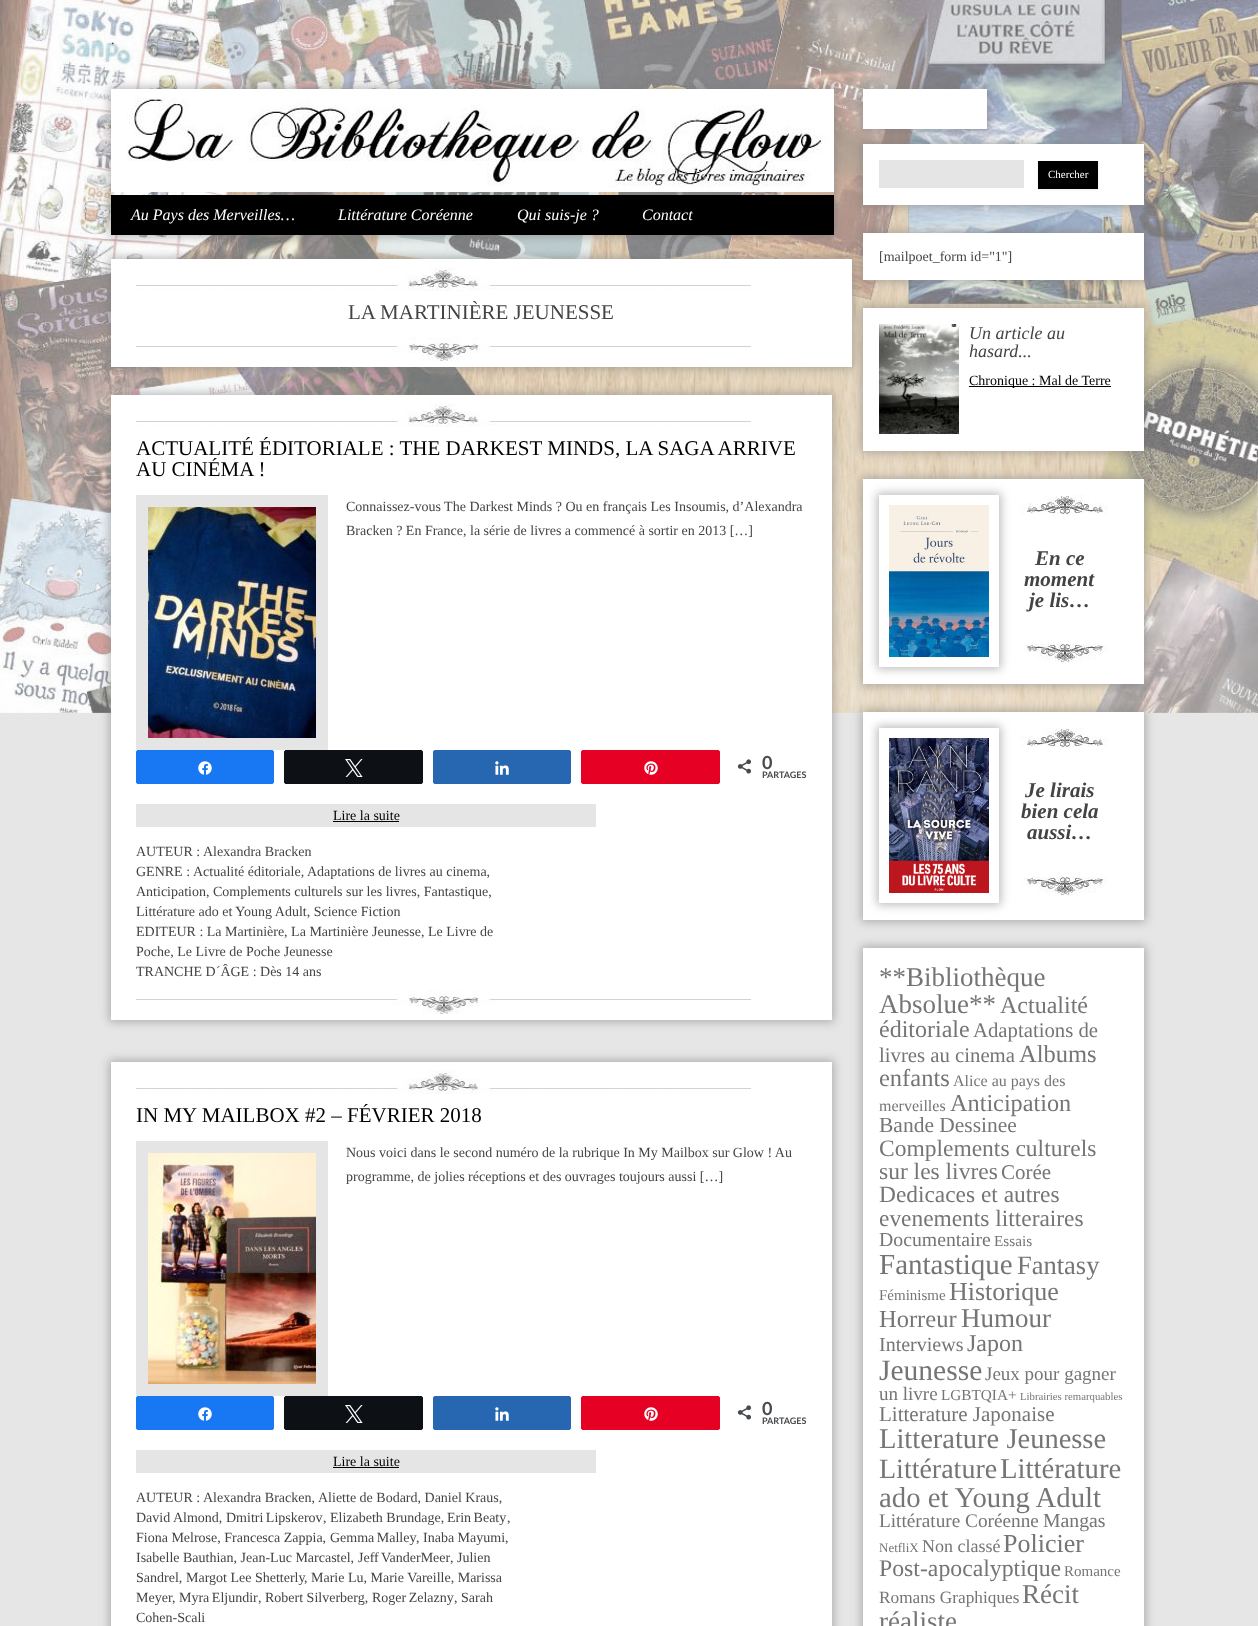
<?xml version="1.0" encoding="UTF-8"?>
<svg xmlns="http://www.w3.org/2000/svg" xmlns:xlink="http://www.w3.org/1999/xlink" width="1258" height="1626">
  <defs>
    <clipPath id="clip1"><path d="M 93 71 h 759 v 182 h -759 z m 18 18 h 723 v 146 h -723 z" clip-rule="evenodd" /></clipPath>
    <clipPath id="clip2"><path d="M 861 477 h 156 v 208 h -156 z m 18 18 h 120 v 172 h -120 z" clip-rule="evenodd" /></clipPath>
    <clipPath id="clip3"><path d="M 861 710 h 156 v 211 h -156 z m 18 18 h 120 v 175 h -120 z" clip-rule="evenodd" /></clipPath>
  </defs>
  <rect width="100%" height="100%" fill="#e6e6e6" />
  <image x="0" y="0" width="1258" height="713" xlink:href="image1.png" />
  <g clip-path="url(#clip1)">
    <rect x="109" y="87" width="727" height="150" fill="#777777" fill-opacity="0.5" filter="blur(5px)" />
  </g>
  <image x="111" y="89" width="723" height="103" xlink:href="image2.png" />
  <rect x="111" y="195" width="723" height="40" fill="#000000" />
  <rect x="861" y="142" width="285" height="65" fill="#777777" fill-opacity="0.5" filter="blur(5px)" />
  <rect x="863" y="144" width="281" height="61" fill="#ffffff" />
  <rect x="861" y="87" width="128" height="44" fill="#777777" fill-opacity="0.5" filter="blur(5px)" />
  <rect x="863" y="89" width="124" height="40" fill="#ffffff" />
  <rect x="879" y="160" width="145" height="28" fill="#e5e5e5" />
  <rect x="1038" y="162" width="60" height="28" fill="#404040" fill-opacity="0.1" filter="blur(1px)" />
  <rect x="1038" y="161" width="60" height="28" fill="#000000" />
  <rect x="109" y="257" width="745" height="112" fill="#777777" fill-opacity="0.5" filter="blur(5px)" />
  <rect x="111" y="259" width="741" height="108" fill="#ffffff" />
  <rect x="861" y="231" width="285" height="51" fill="#777777" fill-opacity="0.5" filter="blur(5px)" />
  <rect x="863" y="233" width="281" height="47" fill="#ffffff" />
  <rect x="861" y="306" width="285" height="147" fill="#777777" fill-opacity="0.5" filter="blur(5px)" />
  <rect x="863" y="308" width="281" height="143" fill="#ffffff" />
  <image x="879" y="324" width="80" height="110" xlink:href="image3.png" />
  <rect x="969" y="386" width="142" height="1" fill="#000000" />
  <rect x="861" y="477" width="285" height="209" fill="#777777" fill-opacity="0.5" filter="blur(5px)" />
  <rect x="863" y="479" width="281" height="205" fill="#ffffff" />
  <g clip-path="url(#clip2)">
    <rect x="877" y="493" width="124" height="176" fill="#777777" fill-opacity="0.5" filter="blur(5px)" />
  </g>
  <image x="889" y="505" width="100" height="152" xlink:href="image4.png" />
  <image x="1020" y="495" width="88" height="19" xlink:href="image5.png" />
  <image x="1022" y="644" width="85" height="19" xlink:href="image6.png" />
  <rect x="861" y="710" width="285" height="212" fill="#777777" fill-opacity="0.5" filter="blur(5px)" />
  <rect x="863" y="712" width="281" height="208" fill="#ffffff" />
  <g clip-path="url(#clip3)">
    <rect x="877" y="726" width="124" height="179" fill="#777777" fill-opacity="0.5" filter="blur(5px)" />
  </g>
  <image x="889" y="738" width="100" height="155" xlink:href="image7.png" />
  <image x="1020" y="728" width="88" height="19" xlink:href="image5.png" />
  <image x="1022" y="877" width="85" height="19" xlink:href="image6.png" />
  <rect x="861" y="946" width="285" height="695" fill="#777777" fill-opacity="0.5" filter="blur(5px)" />
  <rect x="863" y="948" width="281" height="678" fill="#ffffff" />
  <image x="136" y="267" width="615" height="24" xlink:href="image8.png" />
  <image x="136" y="337" width="615" height="24" xlink:href="image9.png" />
  <rect x="109" y="393" width="725" height="629" fill="#777777" fill-opacity="0.5" filter="blur(5px)" />
  <rect x="111" y="395" width="721" height="625" fill="#ffffff" />
  <image x="136" y="403" width="615" height="24" xlink:href="image8.png" />
  <rect x="142" y="501" width="180" height="243" fill="none" stroke="#e5e5e5" stroke-width="12" />
  <image x="148" y="507" width="168" height="231" xlink:href="image10.png" />
  <rect x="136.5" y="750.5" width="137" height="33" rx="1.5" fill="#1877f2" stroke="#1877f2" />
  <image x="198" y="761" width="14" height="14" xlink:href="image11.png" />
  <rect x="284.5" y="750.5" width="138" height="33" rx="1.5" fill="#0d1014" stroke="#0d1014" />
  <image x="345" y="759" width="18" height="18" xlink:href="image12.png" />
  <rect x="433.5" y="750.5" width="137" height="33" rx="1.5" fill="#2767b1" stroke="#2767b1" />
  <image x="495" y="761" width="14" height="14" xlink:href="image13.png" />
  <rect x="581.5" y="750.5" width="138" height="33" rx="1.5" fill="#e60023" stroke="#e60023" />
  <image x="644" y="761" width="14" height="14" xlink:href="image14.png" />
  <image x="737" y="759" width="14" height="15" xlink:href="image15.png" />
  <rect x="136" y="804" width="460" height="23" fill="#e5e5e5" />
  <rect x="333" y="821" width="66" height="1" fill="#000000" />
  <image x="136" y="990" width="615" height="24" xlink:href="image9.png" />
  <rect x="109" y="1060" width="725" height="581" fill="#777777" fill-opacity="0.5" filter="blur(5px)" />
  <rect x="111" y="1062" width="721" height="564" fill="#ffffff" />
  <image x="136" y="1070" width="615" height="24" xlink:href="image8.png" />
  <rect x="142" y="1147" width="180" height="243" fill="none" stroke="#e5e5e5" stroke-width="12" />
  <image x="148" y="1153" width="168" height="231" xlink:href="image16.png" />
  <rect x="136.5" y="1396.5" width="137" height="33" rx="1.5" fill="#1877f2" stroke="#1877f2" />
  <image x="198" y="1407" width="14" height="14" xlink:href="image11.png" />
  <rect x="284.5" y="1396.5" width="138" height="33" rx="1.5" fill="#0d1014" stroke="#0d1014" />
  <image x="345" y="1405" width="18" height="18" xlink:href="image12.png" />
  <rect x="433.5" y="1396.5" width="137" height="33" rx="1.5" fill="#2767b1" stroke="#2767b1" />
  <image x="495" y="1407" width="14" height="14" xlink:href="image13.png" />
  <rect x="581.5" y="1396.5" width="138" height="33" rx="1.5" fill="#e60023" stroke="#e60023" />
  <image x="644" y="1407" width="14" height="14" xlink:href="image14.png" />
  <image x="737" y="1405" width="14" height="15" xlink:href="image15.png" />
  <rect x="136" y="1450" width="460" height="23" fill="#e5e5e5" />
  <rect x="333" y="1467" width="66" height="1" fill="#000000" />
  <text x="111" y="44" style="font-family: Liberation Serif; font-size: 14px; fill: #444444">.</text>
  <text x="131" y="220" style="font-family: Liberation Serif; font-size: 16px; font-style: italic; fill: #ffffff">Au Pays des Merveilles…</text>
  <text x="338" y="220" style="font-family: Liberation Serif; font-size: 16px; font-style: italic; fill: #ffffff">Littérature Coréenne</text>
  <text x="517" y="220" style="font-family: Liberation Serif; font-size: 16px; font-style: italic; fill: #ffffff">Qui suis-je ?</text>
  <text x="642" y="220" style="font-family: Liberation Serif; font-size: 16px; font-style: italic; fill: #ffffff">Contact</text>
  <text x="1048" y="178" style="font-family: Liberation Serif; font-size: 11px; fill: #ffffff">Chercher</text>
  <text x="879" y="261" style="font-family: Liberation Serif; font-size: 14px; fill: #444444">[mailpoet_form id="1"]</text>
  <text x="969" y="339" style="font-family: Liberation Serif; font-size: 18px; font-style: italic; fill: #444444">Un article au</text>
  <text x="969" y="357" style="font-family: Liberation Serif; font-size: 18px; font-style: italic; fill: #444444">hasard...</text>
  <text x="969" y="385" style="font-family: Liberation Serif; font-size: 14px; fill: #000000">Chronique : Mal de Terre</text>
  <text x="1035" y="565" style="font-family: Liberation Serif; font-size: 21px; font-weight: bold; font-style: italic; fill: #444444">En ce</text>
  <text x="1024" y="586" style="font-family: Liberation Serif; font-size: 21px; font-weight: bold; font-style: italic; fill: #444444">moment</text>
  <text x="1029" y="607" style="font-family: Liberation Serif; font-size: 21px; font-weight: bold; font-style: italic; fill: #444444">je lis…</text>
  <text x="1025" y="797" style="font-family: Liberation Serif; font-size: 21px; font-weight: bold; font-style: italic; fill: #444444">Je lirais</text>
  <text x="1021" y="818" style="font-family: Liberation Serif; font-size: 21px; font-weight: bold; font-style: italic; fill: #444444">bien cela</text>
  <text x="1027" y="839" style="font-family: Liberation Serif; font-size: 21px; font-weight: bold; font-style: italic; fill: #444444">aussi…</text>
  <text x="879" y="986" style="font-family: Liberation Serif; font-size: 27px; fill: #757575">**Bibliothèque</text>
  <text x="879" y="1013" style="font-family: Liberation Serif; font-size: 27px; fill: #757575">Absolue**</text>
  <text x="1000" y="1013" style="font-family: Liberation Serif; font-size: 24px; fill: #757575">Actualité</text>
  <text x="879" y="1037" style="font-family: Liberation Serif; font-size: 24px; fill: #757575">éditoriale</text>
  <text x="973" y="1037" style="font-family: Liberation Serif; font-size: 20.75px; fill: #757575">Adaptations de</text>
  <text x="879" y="1062" style="font-family: Liberation Serif; font-size: 20.75px; fill: #757575">livres au cinema</text>
  <text x="1019" y="1062" style="font-family: Liberation Serif; font-size: 24.5px; fill: #757575">Albums</text>
  <text x="879" y="1086" style="font-family: Liberation Serif; font-size: 24.5px; fill: #757575">enfants</text>
  <text x="953" y="1086" style="font-family: Liberation Serif; font-size: 16px; fill: #757575">Alice au pays des</text>
  <text x="879" y="1111" style="font-family: Liberation Serif; font-size: 16px; fill: #757575">merveilles</text>
  <text x="950" y="1111" style="font-family: Liberation Serif; font-size: 24.25px; fill: #757575">Anticipation</text>
  <text x="879" y="1132" style="font-family: Liberation Serif; font-size: 21.5px; fill: #757575">Bande Dessinee</text>
  <text x="879" y="1156" style="font-family: Liberation Serif; font-size: 23.5px; fill: #757575">Complements culturels</text>
  <text x="879" y="1179" style="font-family: Liberation Serif; font-size: 23.5px; fill: #757575">sur les livres</text>
  <text x="1001" y="1179" style="font-family: Liberation Serif; font-size: 21px; fill: #757575">Corée</text>
  <text x="879" y="1202" style="font-family: Liberation Serif; font-size: 23.4px; fill: #757575">Dedicaces et autres</text>
  <text x="879" y="1226" style="font-family: Liberation Serif; font-size: 23.4px; fill: #757575">evenements litteraires</text>
  <text x="879" y="1246" style="font-family: Liberation Serif; font-size: 19.75px; fill: #757575">Documentaire</text>
  <text x="994" y="1246" style="font-family: Liberation Serif; font-size: 15.25px; fill: #757575">Essais</text>
  <text x="879" y="1274" style="font-family: Liberation Serif; font-size: 29px; fill: #757575">Fantastique</text>
  <text x="1017" y="1274" style="font-family: Liberation Serif; font-size: 26.5px; fill: #757575">Fantasy</text>
  <text x="879" y="1300" style="font-family: Liberation Serif; font-size: 15px; fill: #757575">Féminisme</text>
  <text x="949" y="1300" style="font-family: Liberation Serif; font-size: 26px; fill: #757575">Historique</text>
  <text x="879" y="1327" style="font-family: Liberation Serif; font-size: 24.5px; fill: #757575">Horreur</text>
  <text x="961" y="1327" style="font-family: Liberation Serif; font-size: 27px; fill: #757575">Humour</text>
  <text x="879" y="1351" style="font-family: Liberation Serif; font-size: 20px; fill: #757575">Interviews</text>
  <text x="967" y="1351" style="font-family: Liberation Serif; font-size: 24px; fill: #757575">Japon</text>
  <text x="879" y="1380" style="font-family: Liberation Serif; font-size: 29.5px; fill: #757575">Jeunesse</text>
  <text x="985" y="1380" style="font-family: Liberation Serif; font-size: 19px; fill: #757575">Jeux pour gagner</text>
  <text x="879" y="1400" style="font-family: Liberation Serif; font-size: 19px; fill: #757575">un livre</text>
  <text x="941" y="1400" style="font-family: Liberation Serif; font-size: 15.25px; fill: #757575">LGBTQIA+</text>
  <text x="1020" y="1400" style="font-family: Liberation Serif; font-size: 10.75px; fill: #757575">Librairies remarquables</text>
  <text x="879" y="1421" style="font-family: Liberation Serif; font-size: 21px; fill: #757575">Litterature Japonaise</text>
  <text x="879" y="1448" style="font-family: Liberation Serif; font-size: 28.5px; fill: #757575">Litterature Jeunesse</text>
  <text x="879" y="1478" style="font-family: Liberation Serif; font-size: 28px; fill: #757575">Littérature</text>
  <text x="1000" y="1478" style="font-family: Liberation Serif; font-size: 28.75px; fill: #757575">Littérature</text>
  <text x="879" y="1507" style="font-family: Liberation Serif; font-size: 28.75px; fill: #757575">ado et Young Adult</text>
  <text x="879" y="1527" style="font-family: Liberation Serif; font-size: 19.25px; fill: #757575">Littérature Coréenne</text>
  <text x="1043" y="1527" style="font-family: Liberation Serif; font-size: 19.75px; fill: #757575">Mangas</text>
  <text x="879" y="1552" style="font-family: Liberation Serif; font-size: 13px; fill: #757575">NetfliX</text>
  <text x="922" y="1552" style="font-family: Liberation Serif; font-size: 18px; fill: #757575">Non classé</text>
  <text x="1003" y="1552" style="font-family: Liberation Serif; font-size: 26px; fill: #757575">Policier</text>
  <text x="879" y="1576" style="font-family: Liberation Serif; font-size: 23.75px; fill: #757575">Post-apocalyptique</text>
  <text x="1064" y="1576" style="font-family: Liberation Serif; font-size: 15px; fill: #757575">Romance</text>
  <text x="879" y="1603" style="font-family: Liberation Serif; font-size: 17.25px; fill: #757575">Romans Graphiques</text>
  <text x="1022" y="1603" style="font-family: Liberation Serif; font-size: 27px; fill: #757575">Récit</text>
  <text x="879" y="1630" style="font-family: Liberation Serif; font-size: 27px; fill: #757575">réaliste</text>
  <text x="348" y="319" style="font-family: Liberation Serif; font-size: 21px; fill: #444444">LA MARTINIÈRE JEUNESSE</text>
  <text x="136" y="455" style="font-family: Liberation Serif; font-size: 21px; fill: #000000">ACTUALITÉ ÉDITORIALE : THE DARKEST MINDS, LA SAGA ARRIVE</text>
  <text x="136" y="476" style="font-family: Liberation Serif; font-size: 21px; fill: #000000">AU CINÉMA !</text>
  <text x="346" y="511" style="font-family: Liberation Serif; font-size: 14px; fill: #444444">Connaissez-vous The Darkest Minds ? Ou en français Les Insoumis, d’Alexandra</text>
  <text x="346" y="535" style="font-family: Liberation Serif; font-size: 14px; fill: #444444">Bracken ? En France, la série de livres a commencé à sortir en 2013 […]</text>
  <text x="762" y="769" style="font-family: Lato; font-size: 18px; font-weight: bold; fill: #474b4d">0</text>
  <text x="762" y="778" style="font-family: Lato; font-size: 9px; font-weight: bold; fill: #474b4d">PARTAGES</text>
  <text x="333" y="820" style="font-family: Liberation Serif; font-size: 14px; fill: #000000">Lire la suite</text>
  <text x="136" y="856" style="font-family: Liberation Serif; font-size: 14px; fill: #444444">AUTEUR :</text>
  <text x="203" y="856" style="font-family: Liberation Serif; font-size: 14px; fill: #444444">Alexandra Bracken</text>
  <text x="136" y="876" style="font-family: Liberation Serif; font-size: 14px; fill: #444444">GENRE :</text>
  <text x="193" y="876" style="font-family: Liberation Serif; font-size: 14px; fill: #444444">Actualité éditoriale,</text>
  <text x="307" y="876" style="font-family: Liberation Serif; font-size: 14px; fill: #444444">Adaptations de livres au cinema,</text>
  <text x="136" y="896" style="font-family: Liberation Serif; font-size: 14px; fill: #444444">Anticipation, Complements culturels sur les livres, Fantastique,</text>
  <text x="136" y="916" style="font-family: Liberation Serif; font-size: 14px; fill: #444444">Littérature ado et Young Adult, Science Fiction</text>
  <text x="136" y="936" style="font-family: Liberation Serif; font-size: 14px; fill: #444444">EDITEUR : La Martinière, La Martinière Jeunesse, Le Livre de</text>
  <text x="136" y="956" style="font-family: Liberation Serif; font-size: 14px; fill: #444444">Poche, Le Livre de Poche Jeunesse</text>
  <text x="136" y="976" style="font-family: Liberation Serif; font-size: 14px; fill: #444444">TRANCHE D´ÂGE : Dès 14 ans</text>
  <text x="136" y="1122" style="font-family: Liberation Serif; font-size: 21px; fill: #000000">IN MY MAILBOX #2 – FÉVRIER 2018</text>
  <text x="346" y="1157" style="font-family: Liberation Serif; font-size: 14px; fill: #444444">Nous voici dans le second numéro de la rubrique In My Mailbox sur Glow ! Au</text>
  <text x="346" y="1181" style="font-family: Liberation Serif; font-size: 14px; fill: #444444">programme, de jolies réceptions et des ouvrages toujours aussi […]</text>
  <text x="762" y="1415" style="font-family: Lato; font-size: 18px; font-weight: bold; fill: #474b4d">0</text>
  <text x="762" y="1424" style="font-family: Lato; font-size: 9px; font-weight: bold; fill: #474b4d">PARTAGES</text>
  <text x="333" y="1466" style="font-family: Liberation Serif; font-size: 14px; fill: #000000">Lire la suite</text>
  <text x="136" y="1502" style="font-family: Liberation Serif; font-size: 14px; fill: #444444">AUTEUR :</text>
  <text x="203" y="1502" style="font-family: Liberation Serif; font-size: 14px; fill: #444444">Alexandra Bracken,</text>
  <text x="318" y="1502" style="font-family: Liberation Serif; font-size: 14px; fill: #444444">Aliette de Bodard, Daniel Kraus,</text>
  <text x="136" y="1522" style="font-family: Liberation Serif; font-size: 14px; fill: #444444">David Almond,</text>
  <text x="226" y="1522" word-spacing="-1" style="font-family: Liberation Serif; font-size: 14px; fill: #444444">Dmitri Lipskerov</text>
  <text x="323" y="1522" style="font-family: Liberation Serif; font-size: 14px; fill: #444444">, Elizabeth Brundage,</text>
  <text x="447" y="1522" word-spacing="-1" style="font-family: Liberation Serif; font-size: 14px; fill: #444444">Erin Beaty</text>
  <text x="507" y="1522" style="font-family: Liberation Serif; font-size: 14px; fill: #444444">,</text>
  <text x="136" y="1542" style="font-family: Liberation Serif; font-size: 14px; fill: #444444">Fiona Melrose, Francesca Zappia,</text>
  <text x="330" y="1542" word-spacing="-1" style="font-family: Liberation Serif; font-size: 14px; fill: #444444">Gemma Malley</text>
  <text x="416" y="1542" style="font-family: Liberation Serif; font-size: 14px; fill: #444444">, Inaba Mayumi,</text>
  <text x="136" y="1562" style="font-family: Liberation Serif; font-size: 14px; fill: #444444">Isabelle Bauthian, Jean-Luc Marcastel,</text>
  <text x="358" y="1562" word-spacing="-1" style="font-family: Liberation Serif; font-size: 14px; fill: #444444">Jeff VanderMeer</text>
  <text x="450" y="1562" style="font-family: Liberation Serif; font-size: 14px; fill: #444444">, Julien</text>
  <text x="136" y="1582" style="font-family: Liberation Serif; font-size: 14px; fill: #444444">Sandrel,</text>
  <text x="186" y="1582" style="font-family: Liberation Serif; font-size: 14px; fill: #444444">Margot Lee Shetterly</text>
  <text x="304" y="1582" style="font-family: Liberation Serif; font-size: 14px; fill: #444444">, Marie Lu, Marie Vareille, Marissa</text>
  <text x="136" y="1602" style="font-family: Liberation Serif; font-size: 14px; fill: #444444">Meyer</text>
  <text x="172" y="1602" style="font-family: Liberation Serif; font-size: 14px; fill: #444444">,</text>
  <text x="179" y="1602" word-spacing="-1" style="font-family: Liberation Serif; font-size: 14px; fill: #444444">Myra Eljundir</text>
  <text x="258" y="1602" style="font-family: Liberation Serif; font-size: 14px; fill: #444444">, Robert Silverberg,</text>
  <text x="372" y="1602" word-spacing="-1" style="font-family: Liberation Serif; font-size: 14px; fill: #444444">Roger Zelazny</text>
  <text x="454" y="1602" style="font-family: Liberation Serif; font-size: 14px; fill: #444444">, Sarah</text>
  <text x="136" y="1622" style="font-family: Liberation Serif; font-size: 14px; fill: #444444">Cohen-Scali</text>
</svg>
